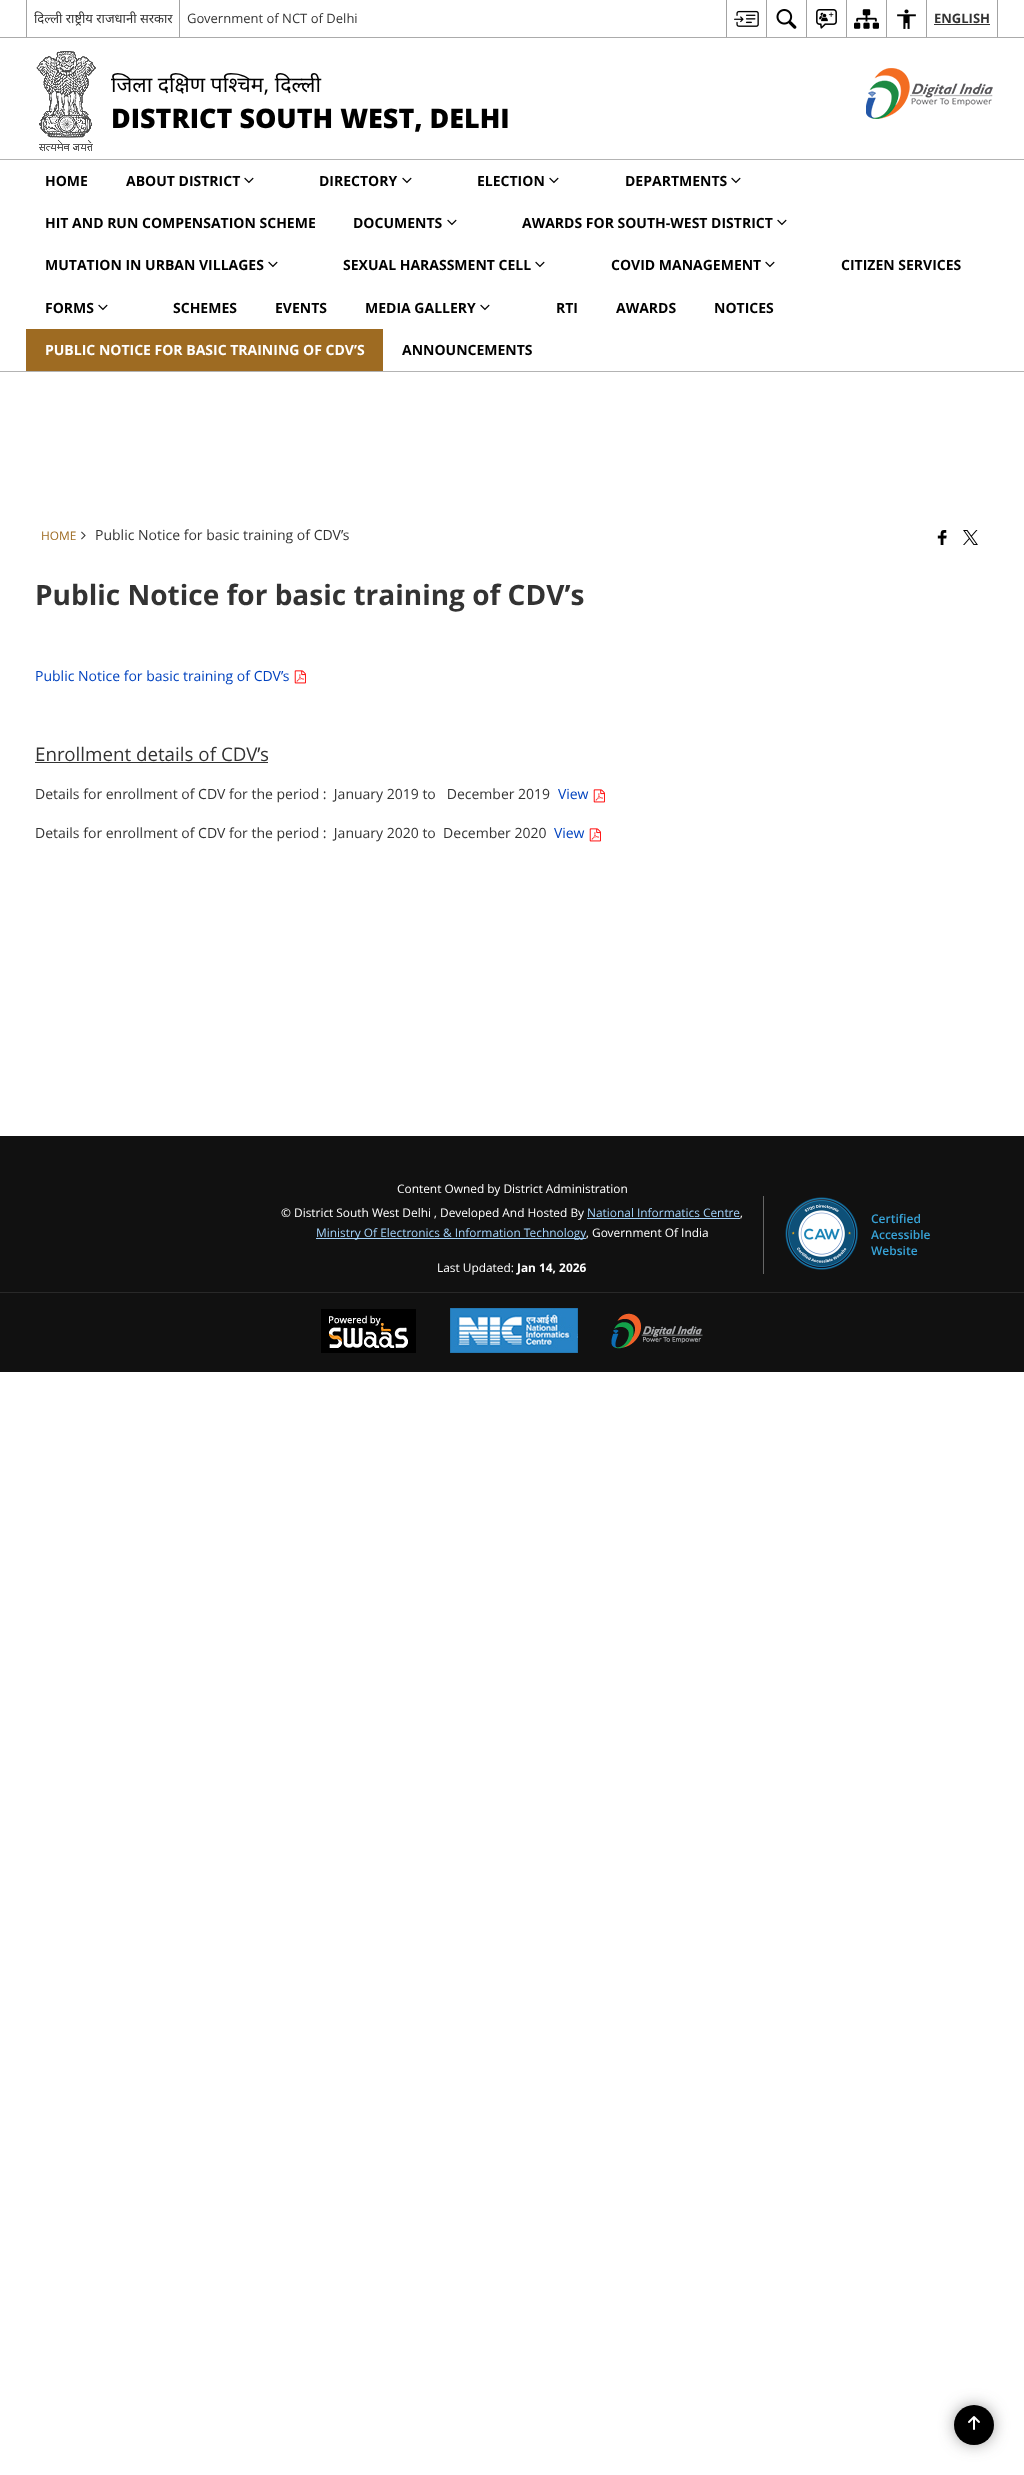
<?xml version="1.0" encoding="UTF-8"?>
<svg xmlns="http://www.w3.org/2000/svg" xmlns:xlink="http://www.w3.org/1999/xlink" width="1024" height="2475">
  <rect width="100%" height="100%" fill="#ffffff" />
  <rect y="37" width="1024" height="1" fill="#ababab" />
  <rect x="26" width="1" height="37" fill="#a3a3a3" />
  <rect x="179" width="1" height="37" fill="#a3a3a3" />
  <rect x="726" width="1" height="37" fill="#a3a3a3" />
  <image x="734" y="10" width="25" height="17" xlink:href="image1.png" />
  <rect x="766" width="1" height="37" fill="#a3a3a3" />
  <image x="776" y="9" width="21" height="20" xlink:href="image2.png" />
  <rect x="806" width="1" height="37" fill="#a3a3a3" />
  <image x="816" y="9" width="21" height="20" xlink:href="image3.png" />
  <rect x="846" width="1" height="37" fill="#a3a3a3" />
  <image x="854" y="9" width="25" height="20" xlink:href="image4.png" />
  <rect x="886" width="1" height="37" fill="#a3a3a3" />
  <image x="897" y="9" width="19" height="20" xlink:href="image5.png" />
  <rect x="997" width="1" height="37" fill="#a3a3a3" />
  <rect x="926" width="1" height="37" fill="#a3a3a3" />
  <rect x="934" y="24" width="56" height="1" fill="#333333" />
  <image x="36" y="51" width="60" height="100" xlink:href="image6.png" />
  <image x="866" y="68" width="127" height="51" xlink:href="image7.png" />
  <rect y="159" width="1024" height="1" fill="#b3b3b3" />
  <rect y="371" width="1024" height="1" fill="#b3b3b3" />
  <image x="244" y="177" width="10" height="7" xlink:href="image8.png" />
  <image x="402" y="177" width="10" height="7" xlink:href="image8.png" />
  <image x="549" y="177" width="10" height="7" xlink:href="image8.png" />
  <image x="731" y="177" width="10" height="7" xlink:href="image8.png" />
  <image x="447" y="219" width="10" height="7" xlink:href="image8.png" />
  <image x="777" y="219" width="10" height="7" xlink:href="image8.png" />
  <image x="268" y="261" width="10" height="7" xlink:href="image8.png" />
  <image x="535" y="261" width="10" height="7" xlink:href="image8.png" />
  <image x="765" y="261" width="10" height="7" xlink:href="image8.png" />
  <image x="98" y="304" width="10" height="7" xlink:href="image8.png" />
  <image x="480" y="304" width="10" height="7" xlink:href="image8.png" />
  <rect x="26" y="329" width="357" height="42" fill="#9e6b22" />
  <image x="81" y="531" width="5" height="9" xlink:href="image9.png" />
  <image x="937" y="530" width="10" height="15" xlink:href="image10.png" />
  <image x="963" y="530" width="15" height="15" xlink:href="image11.png" />
  <image x="294" y="670" width="12" height="14" xlink:href="image12.png" />
  <rect x="35" y="762" width="233" height="1" fill="#333333" />
  <image x="593" y="789" width="12" height="14" xlink:href="image12.png" />
  <image x="589" y="828" width="12" height="14" xlink:href="image12.png" />
  <rect y="1136" width="1024" height="236" fill="#111111" />
  <rect x="587" y="1218" width="153" height="1" fill="#a3d2f9" />
  <rect x="316" y="1238" width="270" height="1" fill="#a3d2f9" />
  <rect x="763" y="1196" width="1" height="78" fill="#666666" />
  <image x="785" y="1197" width="73" height="73" xlink:href="image13.png" />
  <rect y="1292" width="1024" height="1" fill="#292929" />
  <image x="321" y="1309" width="95" height="44" xlink:href="image14.png" />
  <image x="450" y="1308" width="128" height="45" xlink:href="image15.png" />
  <image x="611" y="1313" width="92" height="36" xlink:href="image16.png" />
  <rect x="959" y="2410" width="30" height="30" rx="15" fill="#3c3c3c" filter="blur(9.5px)" />
  <circle cx="974" cy="2425" r="20" fill="#000000" />
  <image x="968" y="2416" width="12" height="14" xlink:href="image17.png" />
  <text x="34" y="23" style="font-family: Noto Sans; font-size: 13px; fill: #333333">दिल्ली राष्ट्रीय राजधानी सरकार</text>
  <text x="187" y="23" style="font-family: Open Sans; font-size: 13px; fill: #333333">Government of NCT of Delhi</text>
  <text x="934" y="23" style="font-family: Open Sans; font-size: 13px; font-weight: bold; fill: #333333">ENGLISH</text>
  <text x="111" y="92" style="font-family: Noto Sans; font-size: 21.25px; fill: #000000">जिला दक्षिण पश्चिम, दिल्ली</text>
  <text x="111" y="128" style="font-family: Open Sans; font-size: 26.9px; font-weight: 800; fill: #000000">DISTRICT SOUTH WEST, DELHI</text>
  <text x="45" y="186" style="font-family: Open Sans; font-size: 14px; font-weight: bold; fill: #000000">HOME</text>
  <text x="126" y="186" style="font-family: Open Sans; font-size: 14px; font-weight: bold; fill: #000000">ABOUT DISTRICT</text>
  <text x="319" y="186" style="font-family: Open Sans; font-size: 14px; font-weight: bold; fill: #000000">DIRECTORY</text>
  <text x="477" y="186" style="font-family: Open Sans; font-size: 14px; font-weight: bold; fill: #000000">ELECTION</text>
  <text x="625" y="186" style="font-family: Open Sans; font-size: 14px; font-weight: bold; fill: #000000">DEPARTMENTS</text>
  <text x="45" y="228" style="font-family: Open Sans; font-size: 14px; font-weight: bold; fill: #000000">HIT AND RUN COMPENSATION SCHEME</text>
  <text x="353" y="228" style="font-family: Open Sans; font-size: 14px; font-weight: bold; fill: #000000">DOCUMENTS</text>
  <text x="522" y="228" style="font-family: Open Sans; font-size: 14px; font-weight: bold; fill: #000000">AWARDS FOR SOUTH-WEST DISTRICT</text>
  <text x="45" y="270" style="font-family: Open Sans; font-size: 14px; font-weight: bold; fill: #000000">MUTATION IN URBAN VILLAGES</text>
  <text x="343" y="270" style="font-family: Open Sans; font-size: 14px; font-weight: bold; fill: #000000">SEXUAL HARASSMENT CELL</text>
  <text x="611" y="270" style="font-family: Open Sans; font-size: 14px; font-weight: bold; fill: #000000">COVID MANAGEMENT</text>
  <text x="841" y="270" style="font-family: Open Sans; font-size: 14px; font-weight: bold; fill: #000000">CITIZEN SERVICES</text>
  <text x="45" y="313" style="font-family: Open Sans; font-size: 14px; font-weight: bold; fill: #000000">FORMS</text>
  <text x="173" y="313" style="font-family: Open Sans; font-size: 14px; font-weight: bold; fill: #000000">SCHEMES</text>
  <text x="275" y="313" style="font-family: Open Sans; font-size: 14px; font-weight: bold; fill: #000000">EVENTS</text>
  <text x="365" y="313" style="font-family: Open Sans; font-size: 14px; font-weight: bold; fill: #000000">MEDIA GALLERY</text>
  <text x="556" y="313" style="font-family: Open Sans; font-size: 14px; font-weight: bold; fill: #000000">RTI</text>
  <text x="616" y="313" style="font-family: Open Sans; font-size: 14px; font-weight: bold; fill: #000000">AWARDS</text>
  <text x="714" y="313" style="font-family: Open Sans; font-size: 14px; font-weight: bold; fill: #000000">NOTICES</text>
  <text x="45" y="355" style="font-family: Open Sans; font-size: 14px; font-weight: bold; fill: #ffffff">PUBLIC NOTICE FOR BASIC TRAINING OF CDV’S</text>
  <text x="402" y="355" style="font-family: Open Sans; font-size: 14px; font-weight: bold; fill: #000000">ANNOUNCEMENTS</text>
  <text x="41" y="540" style="font-family: Open Sans; font-size: 11.9px; fill: #9e6b22">HOME</text>
  <text x="95" y="540" style="font-family: Open Sans; font-size: 14px; fill: #333333">Public Notice for basic training of CDV’s</text>
  <text x="35" y="605" style="font-family: Open Sans; font-size: 28px; font-weight: bold; fill: #333333">Public Notice for basic training of CDV’s</text>
  <text x="35" y="681" style="font-family: Open Sans; font-size: 14px; fill: #0042bf">Public Notice for basic training of CDV’s</text>
  <text x="35" y="761" style="font-family: Open Sans; font-size: 18.75px; fill: #333333">Enrollment details of CDV’s</text>
  <text x="35" y="799" style="font-family: Open Sans; font-size: 14px; fill: #333333" xml:space="preserve">Details for enrollment of CDV for the period :  January 2019 to   December 2019</text>
  <text x="558" y="799" style="font-family: Open Sans; font-size: 14px; fill: #0042bf">View</text>
  <text x="35" y="838" style="font-family: Open Sans; font-size: 14px; fill: #333333" xml:space="preserve">Details for enrollment of CDV for the period :  January 2020 to  December 2020</text>
  <text x="554" y="838" style="font-family: Open Sans; font-size: 14px; fill: #0042bf">View</text>
  <text x="397" y="1193" style="font-family: Open Sans; font-size: 11.9px; fill: #ffffff">Content Owned by District Administration</text>
  <text x="281" y="1217" style="font-family: Open Sans; font-size: 11.9px; fill: #ffffff">© District South West Delhi , Developed And Hosted By</text>
  <text x="587" y="1217" style="font-family: Open Sans; font-size: 11.9px; fill: #a3d2f9">National Informatics Centre</text>
  <text x="740" y="1217" style="font-family: Open Sans; font-size: 11.9px; fill: #ffffff">,</text>
  <text x="316" y="1237" style="font-family: Open Sans; font-size: 11.9px; fill: #a3d2f9">Ministry Of Electronics &amp; Information Technology</text>
  <text x="586" y="1237" style="font-family: Open Sans; font-size: 11.9px; fill: #ffffff">, Government Of India</text>
  <text x="871" y="1223" style="font-family: Open Sans; font-size: 12px; font-weight: 600; fill: #38a3d7">Certified</text>
  <text x="871" y="1239" style="font-family: Open Sans; font-size: 12px; font-weight: 600; fill: #38a3d7">Accessible</text>
  <text x="871" y="1255" style="font-family: Open Sans; font-size: 12px; font-weight: 600; fill: #38a3d7">Website</text>
  <text x="437" y="1272" style="font-family: Open Sans; font-size: 11.9px; fill: #ffffff">Last Updated:</text>
  <text x="517" y="1272" style="font-family: Open Sans; font-size: 11.9px; font-weight: bold; fill: #ffffff">Jan 14, 2026</text>
</svg>
